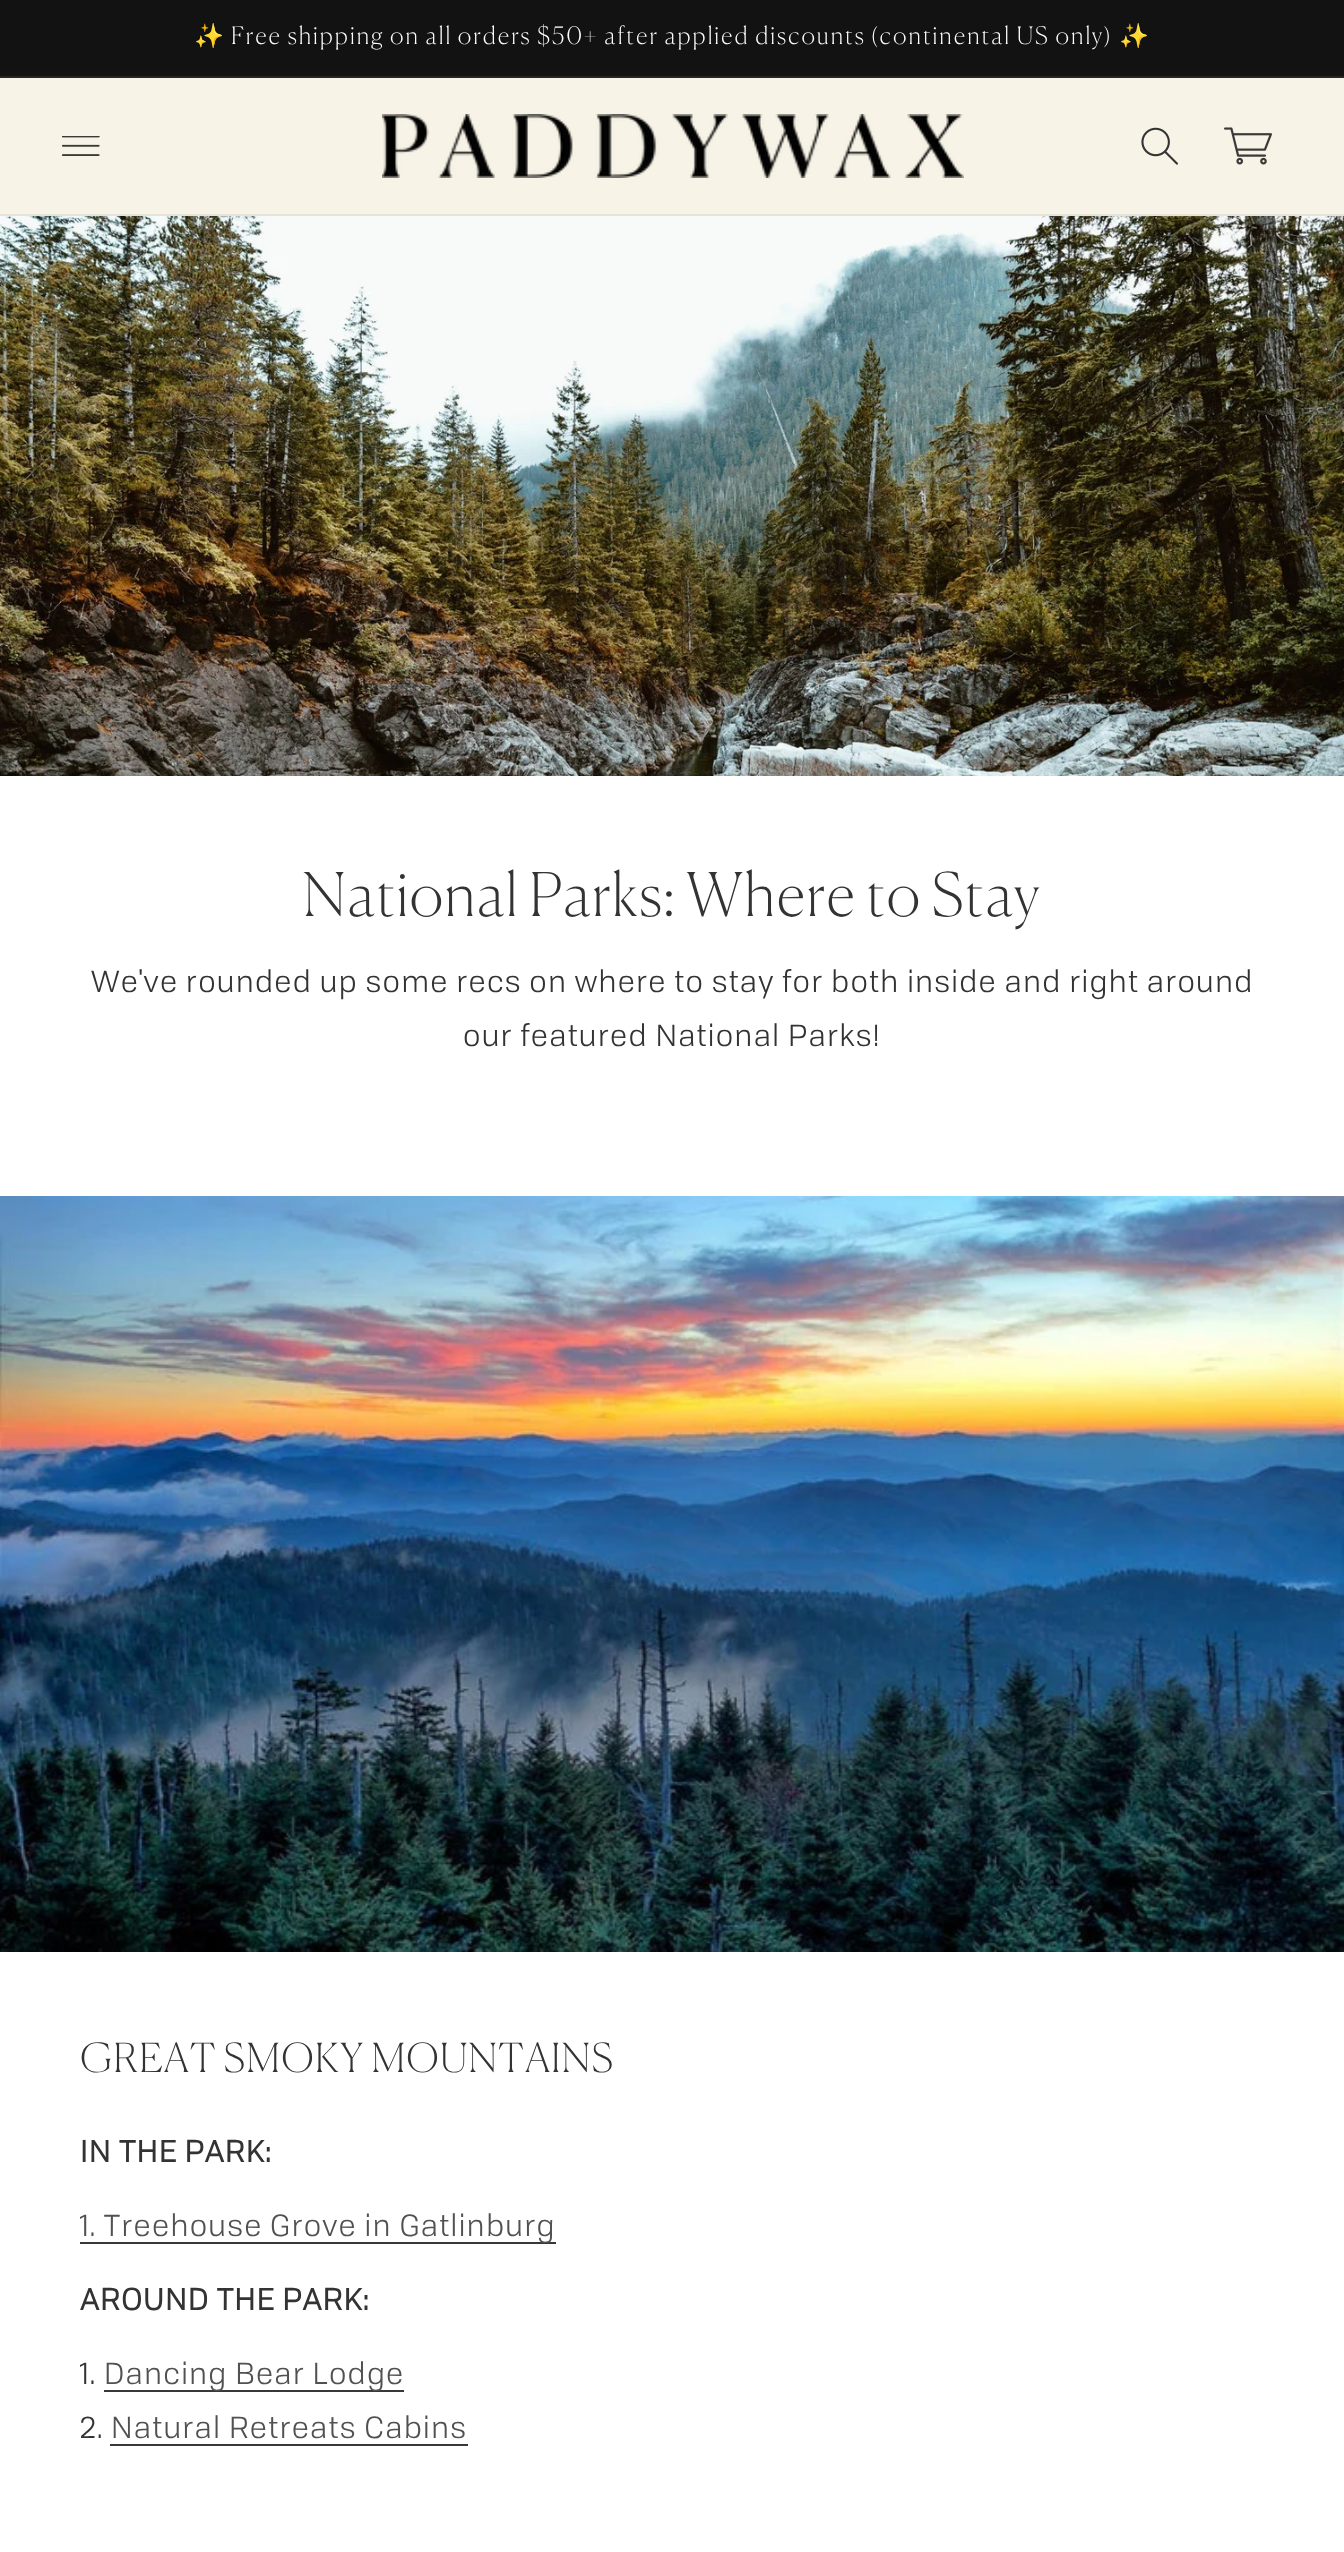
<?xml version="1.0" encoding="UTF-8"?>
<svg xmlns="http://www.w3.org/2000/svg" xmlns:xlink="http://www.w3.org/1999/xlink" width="1344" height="2552">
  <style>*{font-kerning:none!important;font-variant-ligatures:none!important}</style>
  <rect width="100%" height="100%" fill="#ffffff" />
  <rect width="1344" height="76" fill="#121212" />
  <rect y="76" width="1344" height="2" fill="#252525" />
  <rect y="78" width="1344" height="136" fill="#f7f3e7" />
  <rect y="214" width="1344" height="2" fill="#e7e4d9" />
  <image x="62" y="136" width="38" height="20" xlink:href="image1.png" />
  <image x="382" y="114" width="582" height="64" xlink:href="image2.png" />
  <image x="1141" y="127" width="37" height="38" xlink:href="image3.png" />
  <image x="1224" y="127" width="48" height="38" xlink:href="image4.png" />
  <image x="0" y="216" width="1344" height="560" xlink:href="image5.png" />
  <image x="0" y="1196" width="1344" height="756" xlink:href="image6.png" />
  <rect x="80" y="2242" width="476" height="2" fill="#383838" />
  <rect x="104" y="2390" width="300" height="2" fill="#383838" />
  <rect x="110" y="2444" width="358" height="2" fill="#383838" />
  <text x="194" y="44" style="font-family: Noto Color Emoji; font-size: 24px; letter-spacing: 2px; fill: #ffffff">✨</text>
  <text x="231" y="44" style="font-family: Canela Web; font-size: 24px; font-weight: 100; letter-spacing: 2px; fill: #ffffff">Free shipping on all orders $50+ after applied discounts</text>
  <text x="871" y="44" style="font-family: Canela Web; font-size: 24px; font-weight: 100; letter-spacing: 2px; fill: #ffffff">(continental US only)</text>
  <text x="1119" y="44" style="font-family: Noto Color Emoji; font-size: 24px; letter-spacing: 2px; fill: #ffffff">✨</text>
  <text x="303" y="916" style="font-family: Canela Web; font-size: 60px; font-weight: 100; letter-spacing: 1.2px; fill: #333333">National Parks: Where to Stay</text>
  <text x="91" y="992" style="font-family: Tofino; font-size: 30px; letter-spacing: 1.2px; fill: #333333">We've rounded up some recs on where to stay for both inside and right around</text>
  <text x="463" y="1046" style="font-family: Tofino; font-size: 30px; letter-spacing: 1.2px; fill: #333333">our featured National Parks!</text>
  <text x="80" y="2072" style="font-family: Canela Web; font-size: 40px; font-weight: 100; letter-spacing: 1.2px; fill: #333333">GREAT SMOKY MOUNTAINS</text>
  <text x="80" y="2162" style="font-family: Tofino; font-size: 30px; font-weight: bold; letter-spacing: 1.2px; fill: #333333">IN THE PARK:</text>
  <text x="80" y="2236" style="font-family: Tofino; font-size: 30px; letter-spacing: 1.2px; fill: #515151">1. Treehouse Grove in Gatlinburg</text>
  <text x="80" y="2310" style="font-family: Tofino; font-size: 30px; font-weight: bold; letter-spacing: 1.2px; fill: #333333">AROUND THE PARK:</text>
  <text x="80" y="2384" style="font-family: Tofino; font-size: 30px; letter-spacing: 1.2px; fill: #333333">1.</text>
  <text x="104" y="2384" style="font-family: Tofino; font-size: 30px; letter-spacing: 1.2px; fill: #515151">Dancing Bear Lodge</text>
  <text x="80" y="2438" style="font-family: Tofino; font-size: 30px; letter-spacing: 1.2px; fill: #333333">2.</text>
  <text x="111" y="2438" style="font-family: Tofino; font-size: 30px; letter-spacing: 1.2px; fill: #515151">Natural Retreats Cabins</text>
</svg>
